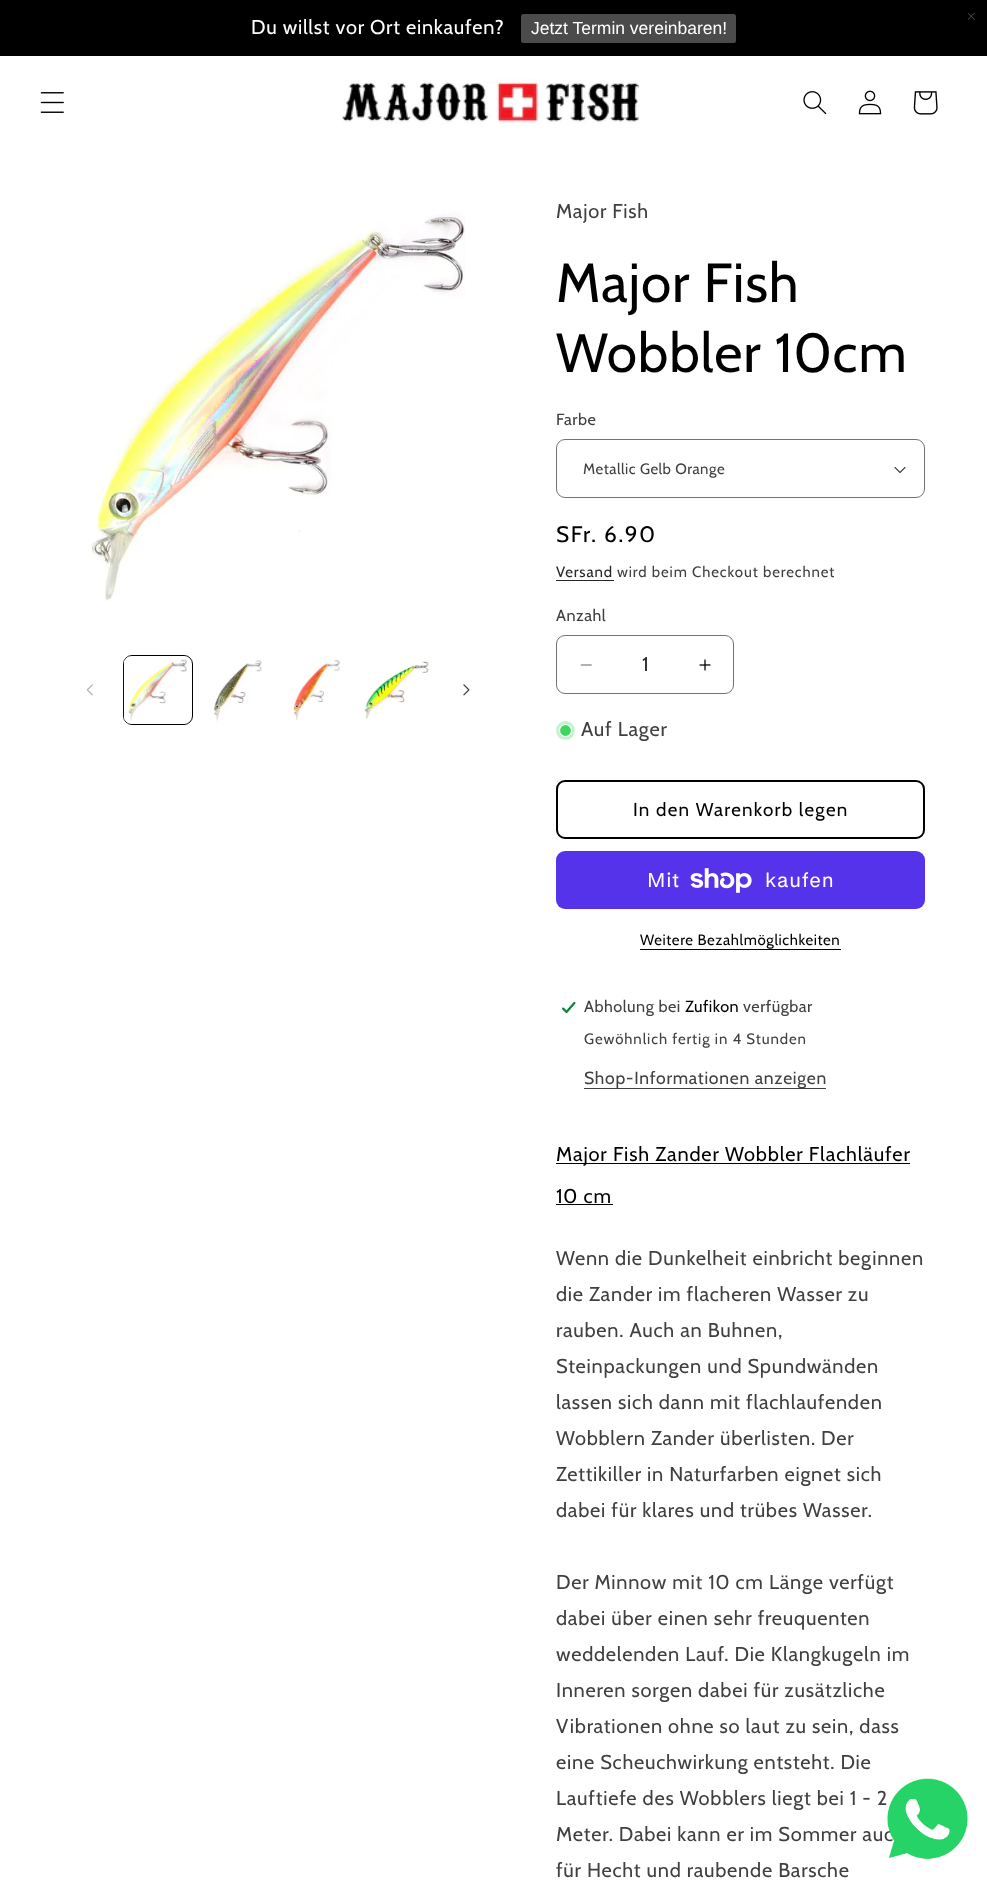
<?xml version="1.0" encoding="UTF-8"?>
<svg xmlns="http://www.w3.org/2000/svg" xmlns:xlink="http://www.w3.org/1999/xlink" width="987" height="1891">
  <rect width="100%" height="100%" fill="#ffffff" />
  <rect width="987" height="56" fill="#000000" />
  <image x="968" y="13" width="7" height="7" xlink:href="image1.png" />
  <rect x="521" y="14" width="215" height="29" rx="2.5" fill="#4b4b4b" />
  <image x="40" y="92" width="24" height="21" xlink:href="image2.png" />
  <image x="342" y="79" width="298" height="45" xlink:href="image3.png" />
  <image x="803" y="91" width="24" height="24" xlink:href="image4.png" />
  <image x="858" y="90" width="24" height="25" xlink:href="image5.png" />
  <image x="913" y="91" width="25" height="24" xlink:href="image6.png" />
  <image x="91" y="211" width="374" height="391" xlink:href="image7.png" />
  <image x="86" y="684" width="7" height="12" xlink:href="image8.png" />
  <rect x="123.5" y="655.5" width="69" height="69" rx="8.5" fill="none" stroke="#000000" />
  <image x="123" y="656" width="67" height="68" xlink:href="image9.png" />
  <image x="213" y="660" width="49" height="61" xlink:href="image10.png" />
  <image x="293" y="660" width="47" height="61" xlink:href="image11.png" />
  <image x="364" y="661" width="65" height="58" xlink:href="image12.png" />
  <image x="463" y="684" width="7" height="12" xlink:href="image13.png" />
  <image x="894" y="467" width="12" height="6" xlink:href="image14.png" />
  <rect x="556.5" y="439.5" width="368" height="58" rx="8.5" fill="none" stroke="#737373" />
  <rect x="556" y="580" width="58" height="1" fill="#262626" />
  <image x="580" y="664" width="12" height="2" xlink:href="image15.png" />
  <image x="699" y="659" width="12" height="12" xlink:href="image16.png" />
  <rect x="556.5" y="635.5" width="177" height="58" rx="8.5" fill="none" stroke="#737373" />
  <circle cx="565.5" cy="730.5" r="9.5" fill="#c5f3cf" />
  <circle cx="565.5" cy="730.5" r="6" fill="#3ed660" stroke="#ffffff" stroke-width="1.2" />
  <rect x="557" y="781" width="367" height="57" rx="8" fill="none" stroke="#000000" stroke-width="2" />
  <rect x="556" y="851" width="369" height="58" rx="9" fill="#5433eb" />
  <image x="690" y="868" width="62" height="25" xlink:href="image17.png" />
  <rect x="640" y="949" width="201" height="1" fill="#000000" />
  <image x="561" y="1001" width="15" height="13" xlink:href="image18.png" />
  <rect x="584" y="1088" width="242" height="1" fill="#404040" />
  <rect x="556" y="1163" width="354" height="1" fill="#000000" />
  <rect x="556" y="1204" width="57" height="1" fill="#000000" />
  <text x="251" y="34" style="font-family: Cabin; font-size: 20px; letter-spacing: 0.75px; fill: #ffffff">Du willst vor Ort einkaufen?</text>
  <text x="531" y="34" style="font-family: Liberation Sans; font-size: 17.5px; fill: #ffffff">Jetzt Termin vereinbaren!</text>
  <text x="556" y="218" style="font-family: Cabin; font-size: 20px; letter-spacing: 0.75px; fill: #404040">Major Fish</text>
  <text x="556" y="302" style="font-family: Cabin; font-size: 55px; letter-spacing: 0.85px; fill: #000000">Major Fish</text>
  <text x="556" y="372" style="font-family: Cabin; font-size: 55px; letter-spacing: 0.85px; fill: #000000">Wobbler 10cm</text>
  <text x="556" y="425" style="font-family: Cabin; font-size: 16.25px; letter-spacing: 0.5px; fill: #404040">Farbe</text>
  <text x="583" y="474" style="font-family: Cabin; font-size: 15px; letter-spacing: 0.5px; fill: #404040">Metallic Gelb Orange</text>
  <text x="556" y="542" style="font-family: Cabin; font-size: 22.5px; letter-spacing: 1.6px; fill: #000000">SFr. 6.90</text>
  <text x="556" y="577" style="font-family: Cabin; font-size: 15px; letter-spacing: 0.9px; fill: #262626">Versand</text>
  <text x="617" y="577" style="font-family: Cabin; font-size: 15px; letter-spacing: 0.9px; fill: #404040">wird beim Checkout berechnet</text>
  <text x="556" y="621" style="font-family: Cabin; font-size: 16.25px; letter-spacing: 0.5px; fill: #404040">Anzahl</text>
  <text x="642" y="671" style="font-family: Cabin; font-size: 20px; fill: #262626">1</text>
  <text x="581" y="736" style="font-family: Cabin; font-size: 20px; letter-spacing: 0.75px; fill: #404040">Auf Lager</text>
  <text x="633" y="816" style="font-family: Cabin; font-size: 18.75px; letter-spacing: 1.25px; fill: #000000">In den Warenkorb legen</text>
  <text x="647" y="887" style="font-family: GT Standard; font-size: 20px; letter-spacing: 0.75px; fill: #ffffff">Mit</text>
  <text x="765" y="887" style="font-family: GT Standard; font-size: 20px; letter-spacing: 0.75px; fill: #ffffff">kaufen</text>
  <text x="640" y="945" style="font-family: Cabin; font-size: 15px; letter-spacing: 0.6px; fill: #000000">Weitere Bezahlmöglichkeiten</text>
  <text x="584" y="1012" style="font-family: Cabin; font-size: 16.25px; letter-spacing: 0.5px; fill: #404040">Abholung bei</text>
  <text x="685" y="1012" style="font-family: Cabin; font-size: 16.25px; letter-spacing: 0.5px; fill: #000000">Zufikon</text>
  <text x="743" y="1012" style="font-family: Cabin; font-size: 16.25px; letter-spacing: 0.5px; fill: #404040">verfügbar</text>
  <text x="584" y="1044" style="font-family: Cabin; font-size: 15px; letter-spacing: 0.9px; fill: #404040">Gewöhnlich fertig in 4 Stunden</text>
  <text x="584" y="1084" style="font-family: Cabin; font-size: 17.5px; letter-spacing: 0.75px; fill: #404040">Shop-Informationen anzeigen</text>
  <text x="556" y="1161" style="font-family: Cabin; font-size: 20px; letter-spacing: 0.85px; fill: #000000">Major Fish Zander Wobbler Flachläufer</text>
  <text x="556" y="1203" style="font-family: Cabin; font-size: 20px; letter-spacing: 0.85px; fill: #000000">10 cm</text>
  <text x="556" y="1265" style="font-family: Cabin; font-size: 20px; letter-spacing: 0.75px; fill: #404040">Wenn die Dunkelheit einbricht beginnen</text>
  <text x="556" y="1301" style="font-family: Cabin; font-size: 20px; letter-spacing: 0.75px; fill: #404040">die Zander im flacheren Wasser zu</text>
  <text x="556" y="1337" style="font-family: Cabin; font-size: 20px; letter-spacing: 0.75px; fill: #404040">rauben. Auch an Buhnen,</text>
  <text x="556" y="1373" style="font-family: Cabin; font-size: 20px; letter-spacing: 0.75px; fill: #404040">Steinpackungen und Spundwänden</text>
  <text x="556" y="1409" style="font-family: Cabin; font-size: 20px; letter-spacing: 0.75px; fill: #404040">lassen sich dann mit flachlaufenden</text>
  <text x="556" y="1445" style="font-family: Cabin; font-size: 20px; letter-spacing: 0.75px; fill: #404040">Wobblern Zander überlisten. Der</text>
  <text x="556" y="1481" style="font-family: Cabin; font-size: 20px; letter-spacing: 0.75px; fill: #404040">Zettikiller in Naturfarben eignet sich</text>
  <text x="556" y="1517" style="font-family: Cabin; font-size: 20px; letter-spacing: 0.75px; fill: #404040">dabei für klares und trübes Wasser.</text>
  <text x="556" y="1589" style="font-family: Cabin; font-size: 20px; letter-spacing: 0.75px; fill: #404040">Der Minnow mit 10 cm Länge verfügt</text>
  <text x="556" y="1625" style="font-family: Cabin; font-size: 20px; letter-spacing: 0.75px; fill: #404040">dabei über einen sehr freuquenten</text>
  <text x="556" y="1661" style="font-family: Cabin; font-size: 20px; letter-spacing: 0.75px; fill: #404040">weddelenden Lauf. Die Klangkugeln im</text>
  <text x="556" y="1697" style="font-family: Cabin; font-size: 20px; letter-spacing: 0.75px; fill: #404040">Inneren sorgen dabei für zusätzliche</text>
  <text x="556" y="1733" style="font-family: Cabin; font-size: 20px; letter-spacing: 0.75px; fill: #404040">Vibrationen ohne so laut zu sein, dass</text>
  <text x="556" y="1769" style="font-family: Cabin; font-size: 20px; letter-spacing: 0.75px; fill: #404040">eine Scheuchwirkung entsteht. Die</text>
  <text x="556" y="1805" style="font-family: Cabin; font-size: 20px; letter-spacing: 0.75px; fill: #404040">Lauftiefe des Wobblers liegt bei 1 - 2</text>
  <text x="556" y="1841" style="font-family: Cabin; font-size: 20px; letter-spacing: 0.75px; fill: #404040">Meter. Dabei kann er im Sommer auc</text>
  <text x="556" y="1877" style="font-family: Cabin; font-size: 20px; letter-spacing: 0.75px; fill: #404040">für Hecht und raubende Barsche</text>
  <image x="887" y="1778" width="81" height="81" xlink:href="image19.png" />
</svg>
